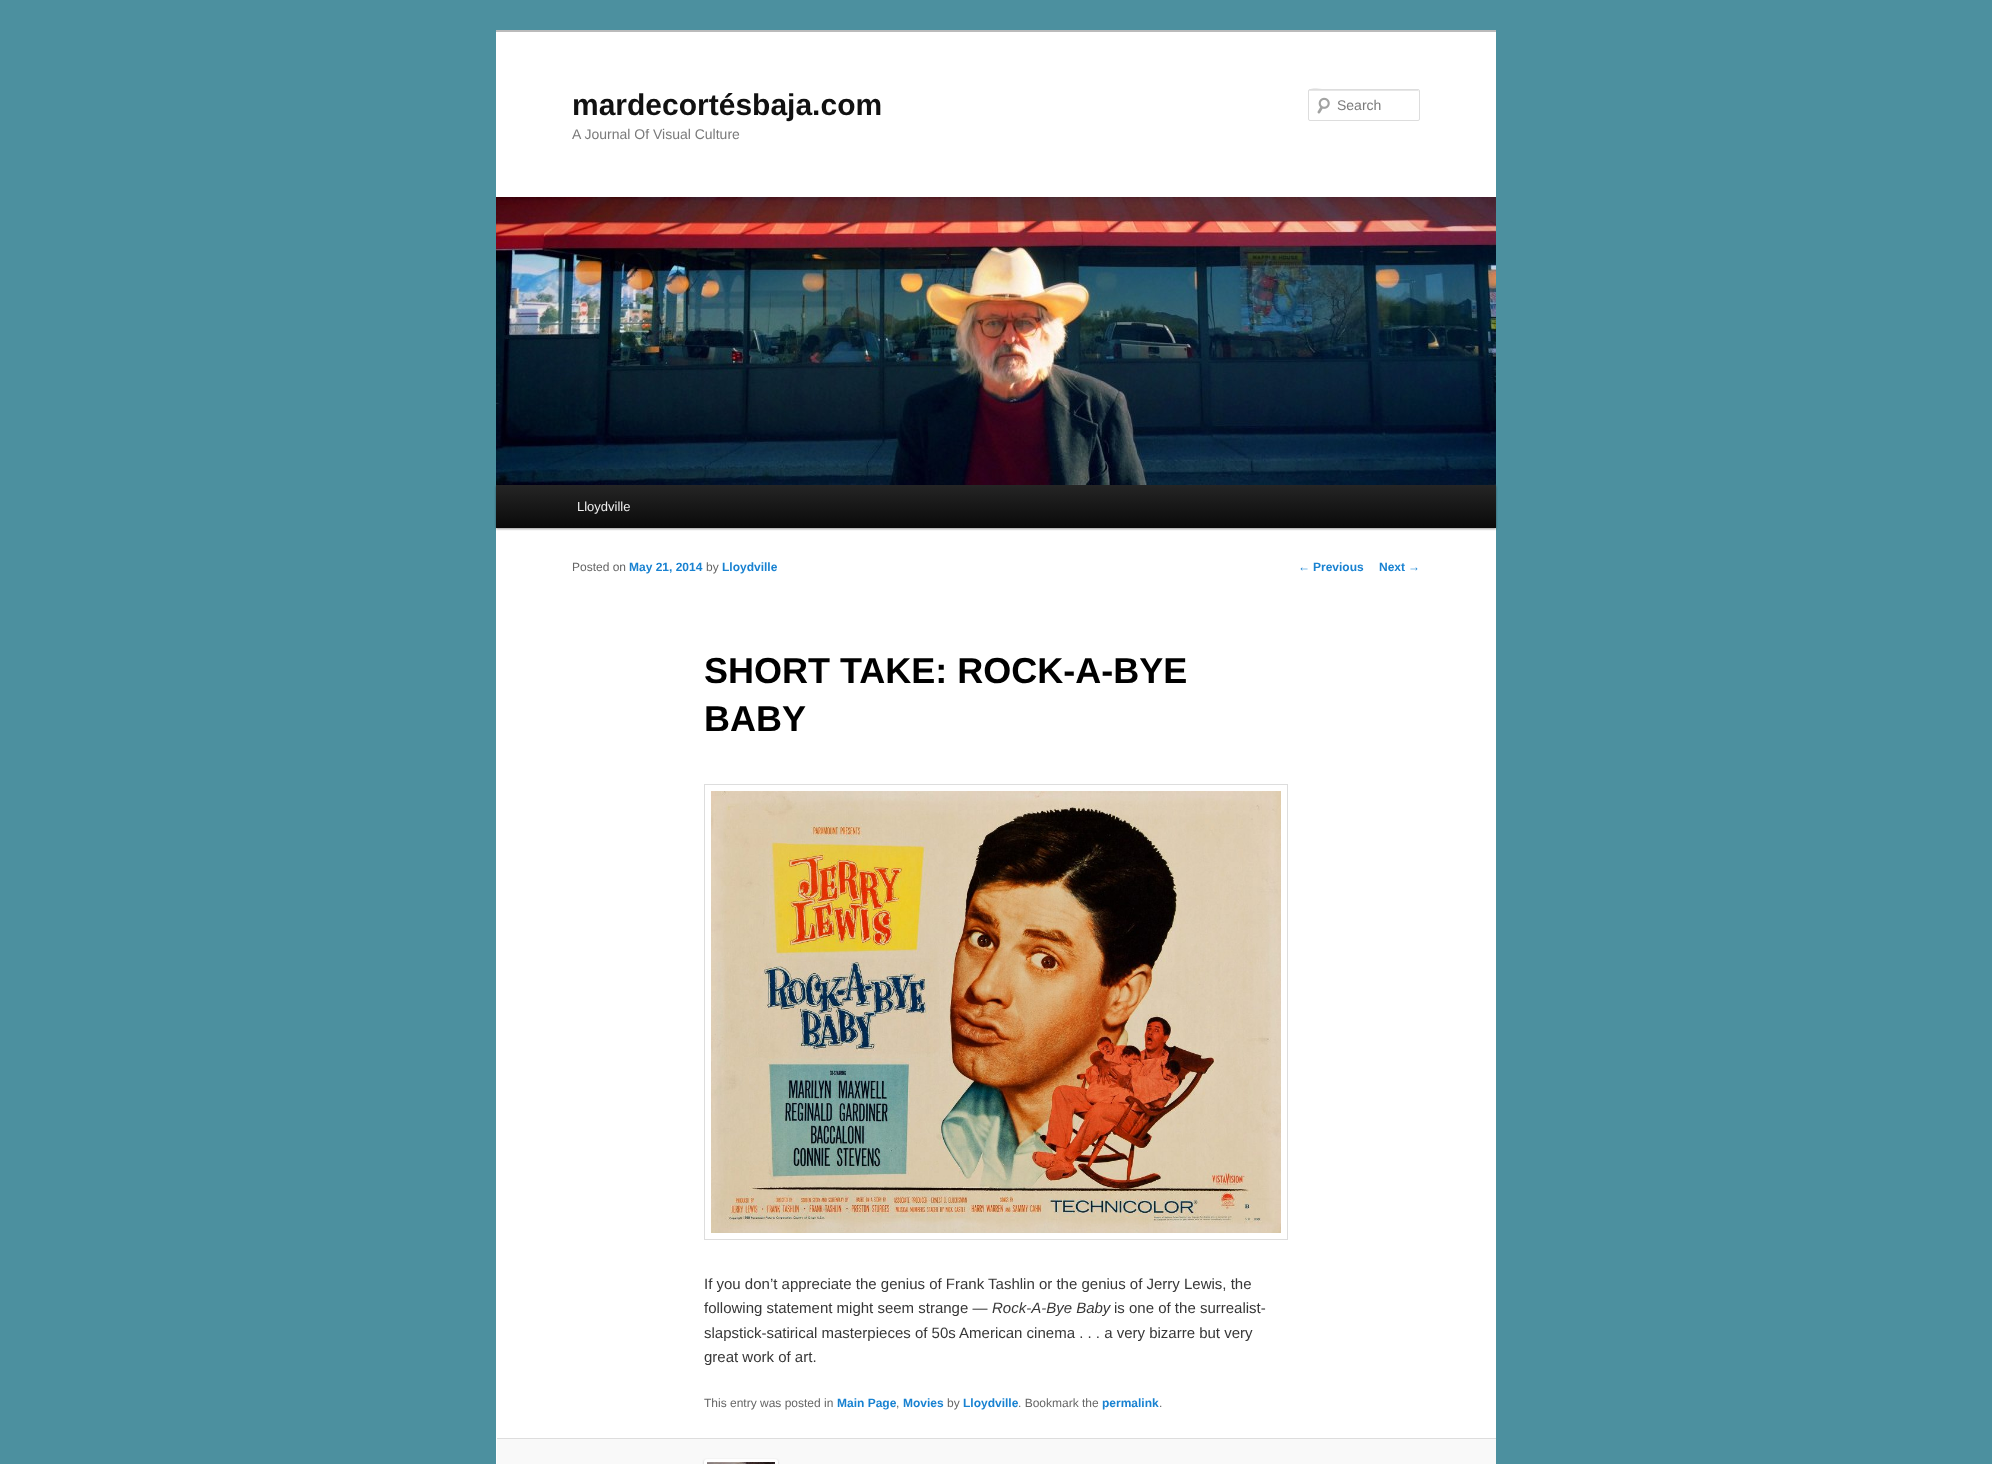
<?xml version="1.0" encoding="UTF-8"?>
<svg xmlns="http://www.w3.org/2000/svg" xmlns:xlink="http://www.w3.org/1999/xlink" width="1992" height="1464">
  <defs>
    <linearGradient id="g1" gradientUnits="userSpaceOnUse" x1="996" y1="485" x2="996" y2="528"><stop offset="0" stop-color="#252525" /><stop offset="1" stop-color="#0a0a0a" /></linearGradient>
  </defs>
  <rect width="100%" height="100%" fill="#4c909f" />
  <rect x="496" y="32" width="1000" height="1432" fill="#ffffff" />
  <rect x="496" y="30" width="1000" height="2" fill="#bbbbbb" />
  <image x="1317" y="97" width="13" height="17" xlink:href="image1.png" />
  <path d="M 1310 91 h 109 v 1 l -1 -2 h -90 c -4 0 -19 -5 -19 2 c 0 -1 0 -1 1 -1 z" fill="#e6e6e6" />
  <rect x="1308.5" y="89.5" width="111" height="31" rx="1.5" fill="none" stroke="#dddddd" />
  <rect x="496" y="486" width="1000" height="43" fill="#000000" fill-opacity="0.4" filter="blur(1px)" />
  <image x="496" y="197" width="1000" height="288" xlink:href="image2.png" />
  <rect x="496" y="485" width="1000" height="43" fill="url(#g1)" />
  <rect x="704.5" y="784.5" width="583" height="455" fill="none" stroke="#dddddd" />
  <image x="711" y="791" width="570" height="442" xlink:href="image3.png" />
  <rect x="497" y="1439" width="999" height="25" fill="#f9f9f9" />
  <rect x="497" y="1438" width="999" height="1" fill="#dddddd" />
  <rect x="704" y="1460" width="74" height="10" rx="3" fill="#bbbbbb" filter="blur(1px)" />
  <rect x="704" y="1459" width="74" height="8" rx="3" fill="#ffffff" />
  <image x="707" y="1462" width="68" height="2" xlink:href="image4.png" />
  <text x="572" y="115" style="font-family: Liberation Sans; font-size: 30px; font-weight: bold; fill: #111111">mardecortésbaja.com</text>
  <text x="572" y="139" style="font-family: Liberation Sans; font-size: 14px; fill: #7a7a7a">A Journal Of Visual Culture</text>
  <text x="1337" y="110" style="font-family: Liberation Sans; font-size: 14px; fill: #7a7a7a">Search</text>
  <text x="577" y="511" style="font-family: Liberation Sans; font-size: 13px; fill: #eeeeee">Lloydville</text>
  <text x="572" y="571" style="font-family: Liberation Sans; font-size: 12px; fill: #666666">Posted on</text>
  <text x="629" y="571" style="font-family: Liberation Sans; font-size: 12px; font-weight: bold; fill: #1982d1">May 21, 2014</text>
  <text x="706" y="571" style="font-family: Liberation Sans; font-size: 12px; fill: #666666">by</text>
  <text x="722" y="571" style="font-family: Liberation Sans; font-size: 12px; font-weight: bold; fill: #1982d1">Lloydville</text>
  <text x="704" y="683" style="font-family: Liberation Sans; font-size: 36px; font-weight: bold; fill: #000000">SHORT TAKE: ROCK-A-BYE</text>
  <text x="704" y="731" style="font-family: Liberation Sans; font-size: 36px; font-weight: bold; fill: #000000">BABY</text>
  <text x="704" y="1289" style="font-family: Liberation Sans; font-size: 15px; fill: #373737">If you don’t appreciate the genius of Frank Tashlin or the genius of Jerry Lewis, the</text>
  <text x="704" y="1313" style="font-family: Liberation Sans; font-size: 15px; fill: #373737">following statement might seem strange —</text>
  <text x="992" y="1313" style="font-family: Liberation Sans; font-size: 15px; font-style: italic; fill: #373737">Rock-A-Bye Baby</text>
  <text x="1114" y="1313" style="font-family: Liberation Sans; font-size: 15px; fill: #373737">is one of the surrealist-</text>
  <text x="704" y="1338" style="font-family: Liberation Sans; font-size: 15px; fill: #373737">slapstick-satirical masterpieces of 50s American cinema . . . a very bizarre but very</text>
  <text x="704" y="1362" style="font-family: Liberation Sans; font-size: 15px; fill: #373737">great work of art.</text>
  <text x="704" y="1407" style="font-family: Liberation Sans; font-size: 12px; fill: #666666">This entry was posted in</text>
  <text x="837" y="1407" style="font-family: Liberation Sans; font-size: 12px; font-weight: bold; fill: #1982d1">Main Page</text>
  <text x="896" y="1407" style="font-family: Liberation Sans; font-size: 12px; fill: #666666">,</text>
  <text x="903" y="1407" style="font-family: Liberation Sans; font-size: 12px; font-weight: bold; fill: #1982d1">Movies</text>
  <text x="947" y="1407" style="font-family: Liberation Sans; font-size: 12px; fill: #666666">by</text>
  <text x="963" y="1407" style="font-family: Liberation Sans; font-size: 12px; font-weight: bold; fill: #1982d1">Lloydville</text>
  <text x="1018" y="1407" style="font-family: Liberation Sans; font-size: 12px; fill: #666666">. Bookmark the</text>
  <text x="1102" y="1407" style="font-family: Liberation Sans; font-size: 12px; font-weight: bold; fill: #1982d1">permalink</text>
  <text x="1159" y="1407" style="font-family: Liberation Sans; font-size: 12px; fill: #666666">.</text>
  <text x="1298" y="571" style="font-family: Liberation Sans; font-size: 12px; fill: #1982d1">←</text>
  <text x="1313" y="571" style="font-family: Liberation Sans; font-size: 12px; font-weight: bold; fill: #1982d1">Previous</text>
  <text x="1379" y="571" style="font-family: Liberation Sans; font-size: 12px; font-weight: bold; fill: #1982d1">Next</text>
  <text x="1408" y="571" style="font-family: Liberation Sans; font-size: 12px; fill: #1982d1">→</text>
</svg>
